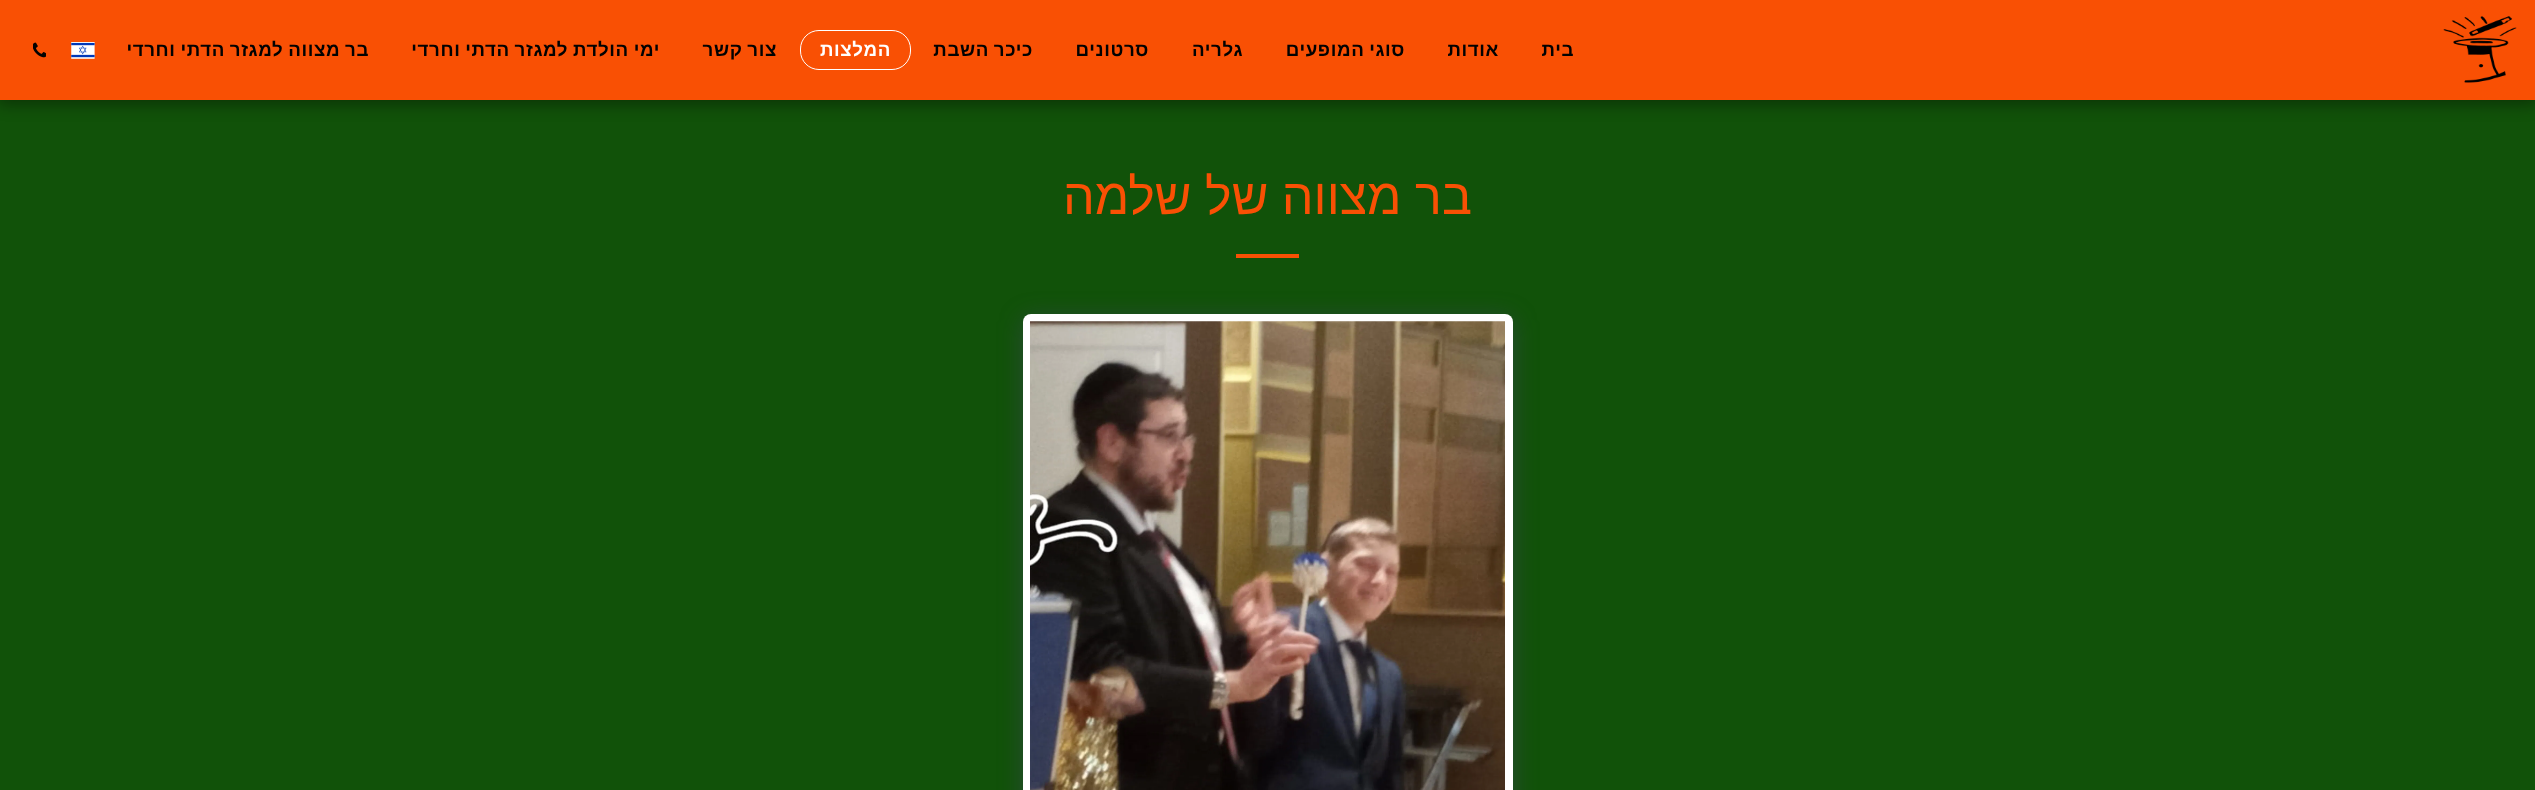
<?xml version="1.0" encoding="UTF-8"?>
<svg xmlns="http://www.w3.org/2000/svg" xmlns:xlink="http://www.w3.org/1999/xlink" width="2535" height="790">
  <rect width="100%" height="100%" fill="#115209" />
  <rect x="-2" width="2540" height="105" fill="#000000" fill-opacity="0.35" filter="blur(7.5px)" />
  <rect width="2535" height="100" fill="#f95004" />
  <image x="2443" y="16" width="74" height="67" xlink:href="image1.png" />
  <rect x="800.5" y="30.5" width="110" height="39" rx="18.5" fill="none" stroke="#ffffff" />
  <image x="71" y="42" width="24" height="17" xlink:href="image2.png" />
  <image x="33" y="42" width="13" height="16" xlink:href="image3.png" />
  <rect x="1236" y="254" width="63" height="4" fill="#f95004" />
  <rect x="1023" y="318" width="490" height="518" rx="8" fill="#4d3f7a" fill-opacity="0.4" filter="blur(12.5px)" />
  <rect x="1023" y="314" width="490" height="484" rx="8" fill="#ffffff" />
  <image x="1030" y="321" width="475" height="469" xlink:href="image4.png" />
  <text x="1574" y="56" style="font-family: Liberation Sans; font-size: 18.75px; font-weight: bold; letter-spacing: 0.6px; direction: rtl; fill: #020202">בית</text>
  <text x="1499" y="56" style="font-family: Liberation Sans; font-size: 18.75px; font-weight: bold; letter-spacing: 0.6px; direction: rtl; fill: #020202">אודות</text>
  <text x="1405" y="56" word-spacing="-1" style="font-family: Liberation Sans; font-size: 18.75px; font-weight: bold; letter-spacing: 0.6px; direction: rtl; fill: #020202">סוגי המופעים</text>
  <text x="1243" y="56" style="font-family: Liberation Sans; font-size: 18.75px; font-weight: bold; letter-spacing: 0.6px; direction: rtl; fill: #020202">גלריה</text>
  <text x="1149" y="56" style="font-family: Liberation Sans; font-size: 18.75px; font-weight: bold; letter-spacing: 0.6px; direction: rtl; fill: #020202">סרטונים</text>
  <text x="1033" y="56" word-spacing="-1" style="font-family: Liberation Sans; font-size: 18.75px; font-weight: bold; letter-spacing: 0.6px; direction: rtl; fill: #020202">כיכר השבת</text>
  <text x="891" y="56" style="font-family: Liberation Sans; font-size: 18.75px; font-weight: bold; letter-spacing: 0.6px; direction: rtl; fill: #ffffff">המלצות</text>
  <text x="777" y="56" word-spacing="-1" style="font-family: Liberation Sans; font-size: 18.75px; font-weight: bold; letter-spacing: 0.6px; direction: rtl; fill: #020202">צור קשר</text>
  <text x="660" y="56" word-spacing="-1" style="font-family: Liberation Sans; font-size: 18.75px; font-weight: bold; letter-spacing: 0.6px; direction: rtl; fill: #020202">ימי הולדת למגזר הדתי וחרדי</text>
  <text x="369" y="56" word-spacing="-1" style="font-family: Liberation Sans; font-size: 18.75px; font-weight: bold; letter-spacing: 0.6px; direction: rtl; fill: #020202">בר מצווה למגזר הדתי וחרדי</text>
  <text x="1472" y="214" word-spacing="-0.5" style="font-family: Liberation Sans; font-size: 50.25px; direction: rtl; fill: #f95004">בר מצווה של שלמה</text>
</svg>
